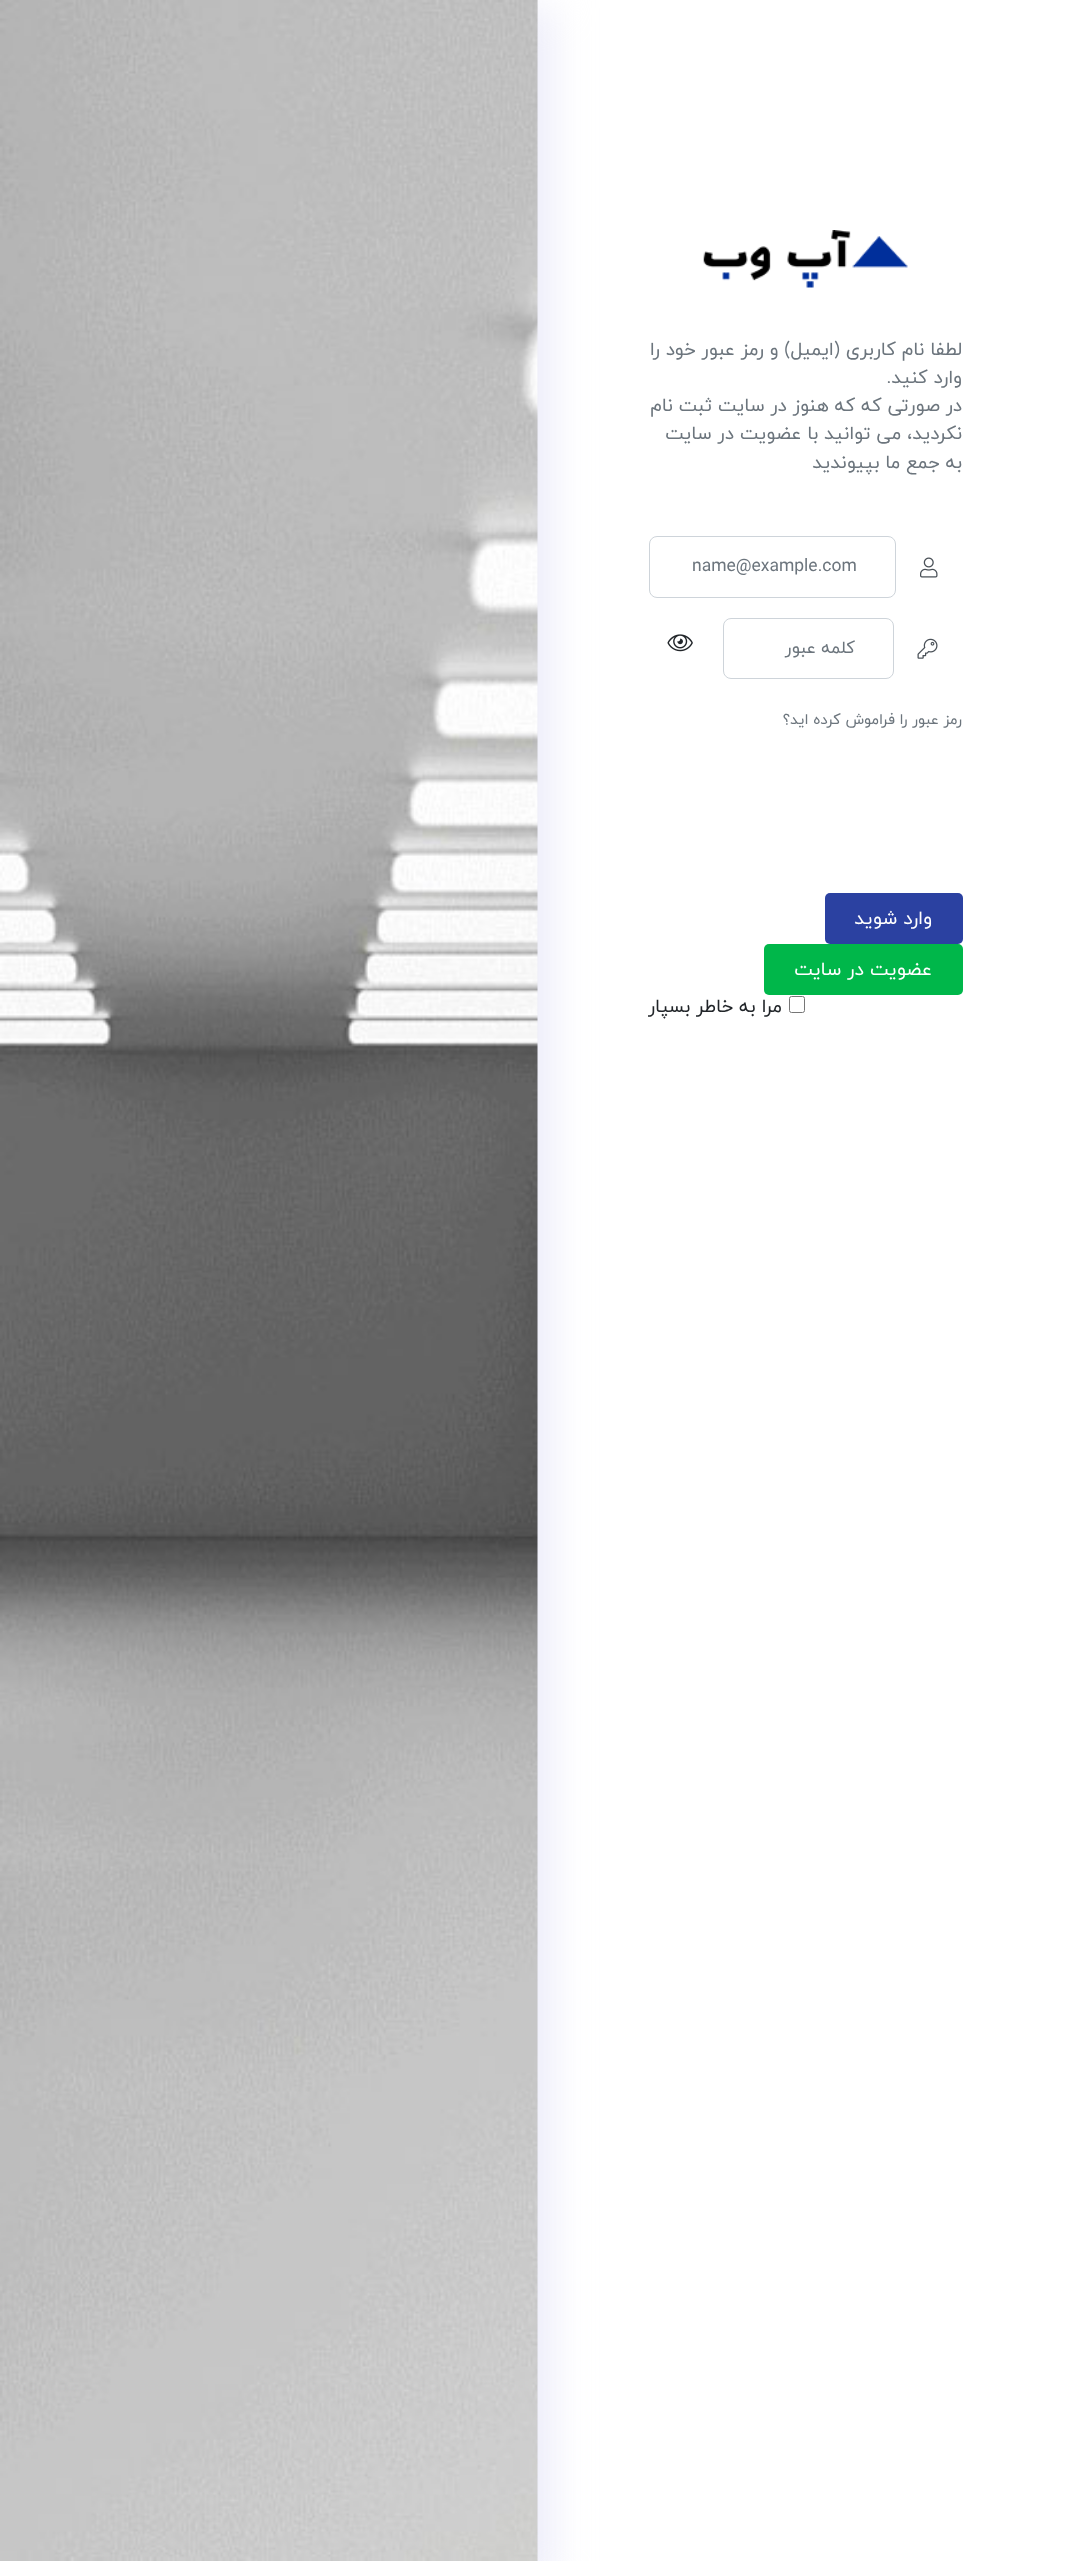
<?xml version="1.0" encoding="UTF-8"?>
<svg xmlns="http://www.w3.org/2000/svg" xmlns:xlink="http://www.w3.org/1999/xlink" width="1073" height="2561">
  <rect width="100%" height="100%" fill="#f2f2f2" />
  <rect x="538" width="535" height="2561" fill="#ffffff" />
  <image x="703" y="230" width="205" height="58" xlink:href="image1.png" />
  <image x="920" y="557" width="18" height="21" xlink:href="image2.png" />
  <rect x="649.5" y="536.5" width="246" height="61" rx="7.5" fill="none" stroke="#ced4da" />
  <image x="917" y="638" width="21" height="21" xlink:href="image3.png" />
  <rect x="723.5" y="618.5" width="170" height="60" rx="7.5" fill="none" stroke="#ced4da" />
  <image x="667" y="634" width="26" height="18" xlink:href="image4.png" />
  <rect x="825" y="893" width="138" height="51" rx="5" fill="#2b41a1" />
  <rect x="764" y="944" width="199" height="51" rx="5" fill="#00b74a" />
  <rect x="789.5" y="996.5" width="15" height="16" rx="2" fill="none" stroke="#767676" />
  <rect x="-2" y="8" width="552" height="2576" fill="#eaeaf9" filter="blur(20.5px)" />
  <image x="0" y="0" width="538" height="2561" xlink:href="image5.png" />
  <text x="962" y="355" style="font-family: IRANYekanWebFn; font-size: 18.75px; direction: rtl; fill: #6c757d">لطفا نام کاربری (ایمیل) و رمز عبور خود را</text>
  <text x="962" y="383" style="font-family: IRANYekanWebFn; font-size: 18.75px; direction: rtl; fill: #6c757d">وارد کنید.</text>
  <text x="962" y="411" style="font-family: IRANYekanWebFn; font-size: 18.75px; direction: rtl; fill: #6c757d">در صورتی که که هنوز در سایت ثبت نام</text>
  <text x="962" y="439" style="font-family: IRANYekanWebFn; font-size: 18.75px; direction: rtl; fill: #6c757d">نکردید، می توانید با عضویت در سایت</text>
  <text x="962" y="468" style="font-family: IRANYekanWebFn; font-size: 18.75px; direction: rtl; fill: #6c757d">به جمع ما بپیوندید</text>
  <text x="692" y="571" style="font-family: IRANYekanWebFn; font-size: 17.5px; fill: #6c757d">name@example.com</text>
  <text x="855" y="653" style="font-family: IRANYekanWebFn; font-size: 17.5px; direction: rtl; fill: #6c757d">کلمه عبور</text>
  <text x="962" y="724" style="font-family: IRANYekanWebFn; font-size: 15px; direction: rtl; fill: #6c757d">رمز عبور را فراموش کرده اید؟</text>
  <text x="932" y="924" style="font-family: IRANYekanWebFn; font-size: 19px; direction: rtl; fill: #ffffff">وارد شوید</text>
  <text x="932" y="975" style="font-family: IRANYekanWebFn; font-size: 19px; direction: rtl; fill: #ffffff">عضویت در سایت</text>
  <text x="782" y="1012" style="font-family: IRANYekanWebFn; font-size: 18.75px; direction: rtl; fill: #212529">مرا به خاطر بسپار</text>
</svg>
